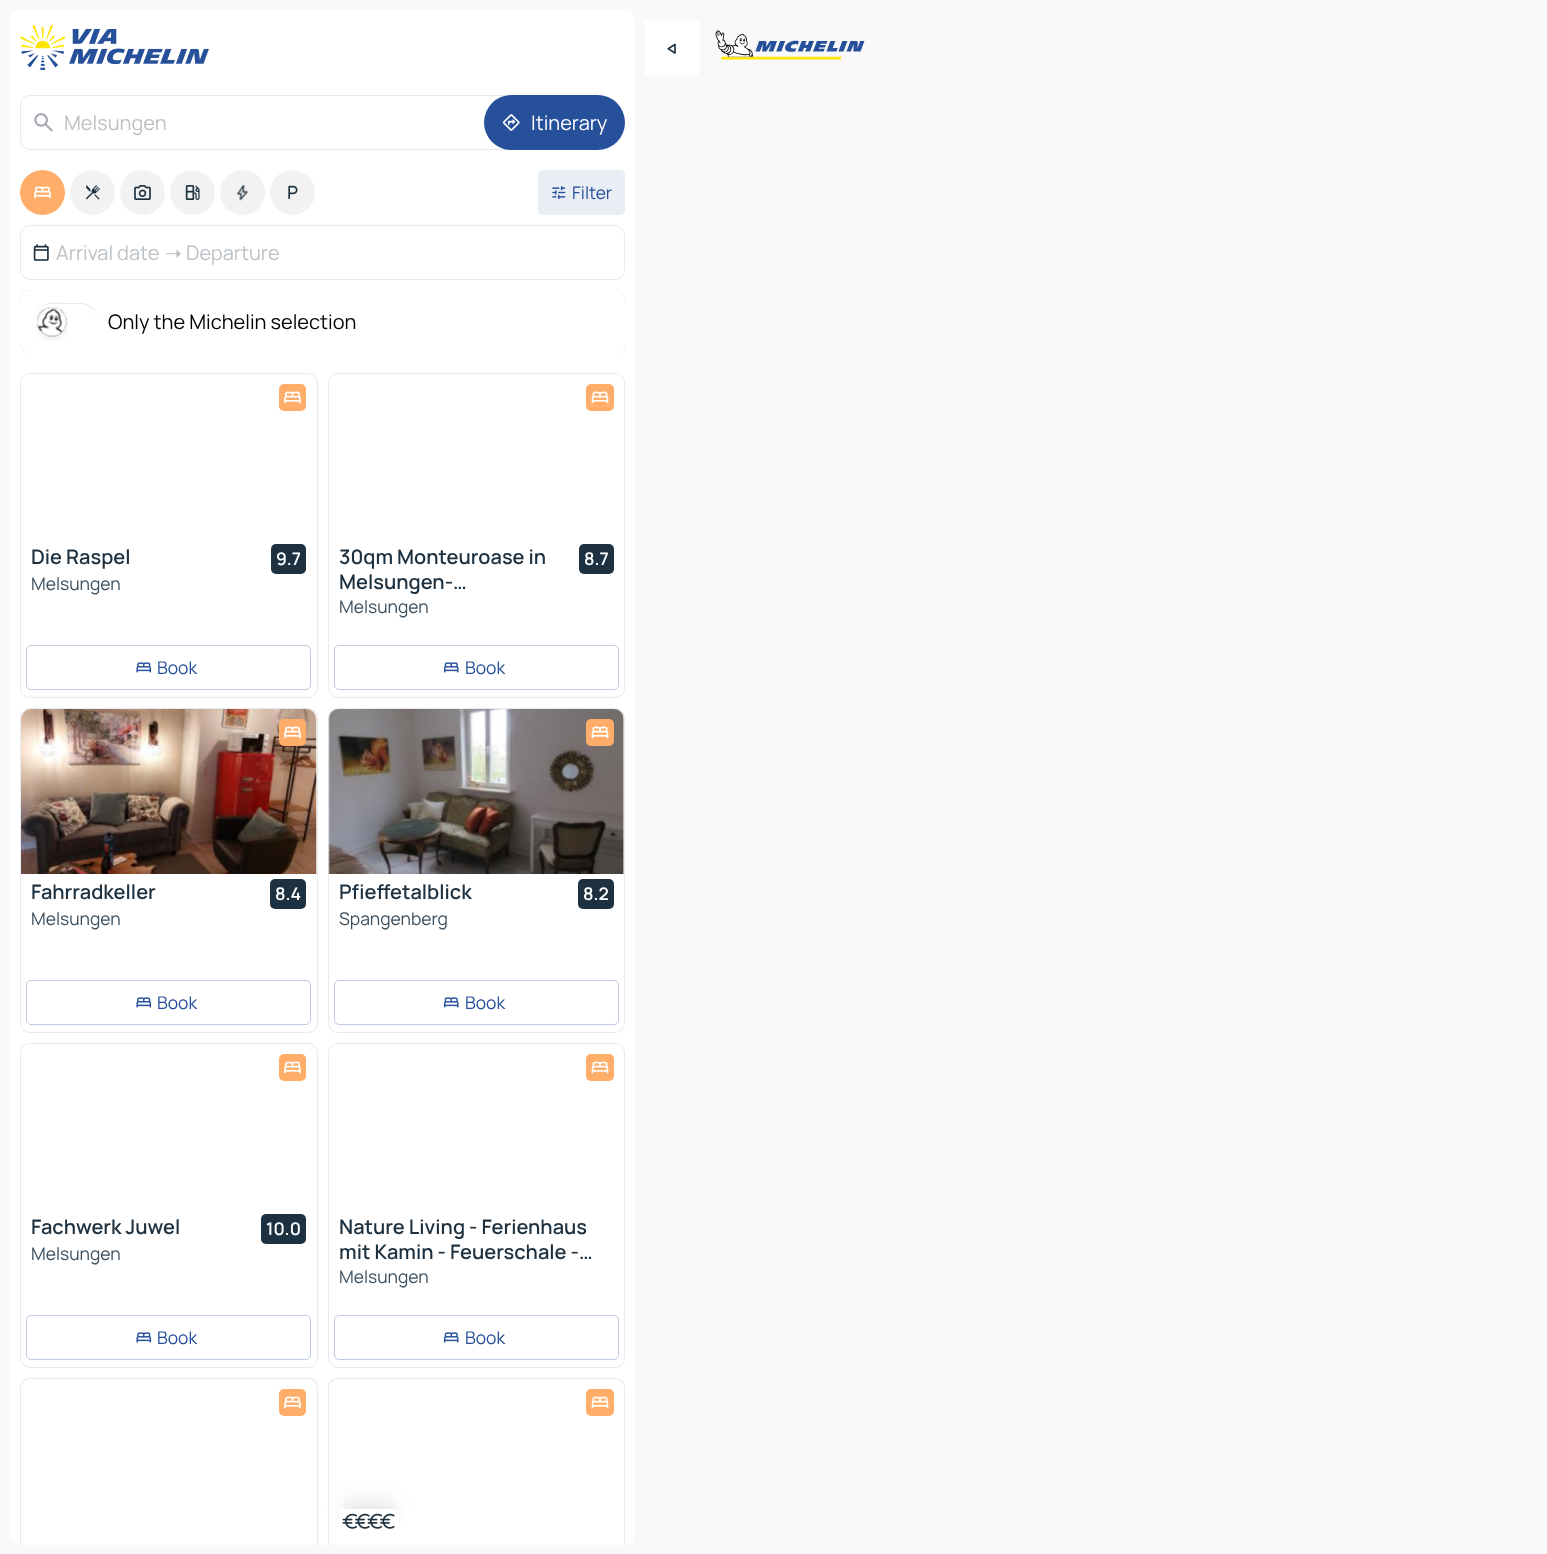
<?xml version="1.0" encoding="UTF-8"?>
<svg xmlns="http://www.w3.org/2000/svg" xmlns:xlink="http://www.w3.org/1999/xlink" width="1547" height="1554">
  <defs>
    <clipPath id="clip1"><path d="M 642 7 h 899 v 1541 h -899 z m 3 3 h 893 v 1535 h -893 z" clip-rule="evenodd" /></clipPath>
  </defs>
  <rect width="100%" height="100%" fill="#f9f9f9" />
  <rect x="10" y="10" width="625" height="1535" rx="10" fill="#ffffff" />
  <image x="20" y="25" width="189" height="45" xlink:href="image1.png" />
  <rect x="20.5" y="95.5" width="493" height="54" rx="9.5" fill="none" stroke="#e8eaec" />
  <image x="34" y="113" width="19" height="19" xlink:href="image2.png" />
  <rect x="484" y="95" width="141" height="55" rx="27.5" fill="#27509b" />
  <image x="502" y="114" width="18" height="17" xlink:href="image3.png" />
  <circle cx="42.5" cy="192.5" r="22.5" fill="#ffad69" />
  <image x="34" y="186" width="17" height="13" xlink:href="image4.png" />
  <circle cx="92.5" cy="192.5" r="22.5" fill="#f2f2f2" />
  <image x="86" y="185" width="14" height="15" xlink:href="image5.png" />
  <circle cx="142.5" cy="192.5" r="22.5" fill="#f2f2f2" />
  <image x="134" y="185" width="17" height="15" xlink:href="image6.png" />
  <circle cx="192.5" cy="192.5" r="22.5" fill="#f2f2f2" />
  <image x="185" y="185" width="15" height="15" xlink:href="image7.png" />
  <circle cx="242.5" cy="192.5" r="22.5" fill="#f2f2f2" />
  <image x="236" y="184" width="12" height="17" xlink:href="image8.png" />
  <circle cx="292.5" cy="192.5" r="22.5" fill="#f2f2f2" />
  <image x="288" y="185" width="10" height="15" xlink:href="image9.png" />
  <rect x="538" y="170" width="87" height="45" rx="5" fill="#e9eef5" />
  <image x="552" y="186" width="14" height="13" xlink:href="image10.png" />
  <rect x="20.5" y="225.5" width="604" height="54" rx="9.5" fill="none" stroke="#e8eaec" />
  <image x="33" y="244" width="16" height="17" xlink:href="image11.png" />
  <rect x="20" y="290" width="605" height="63" rx="10" fill="#0c1a4b" fill-opacity="0.24" filter="blur(0.5px)" />
  <rect x="20" y="290" width="605" height="63" rx="10" fill="#ffffff" />
  <path d="M 51 304 h 28 c 10 0 19 8 19 18 c 0 -9 -6 -17 -15 -19 h -17 c -11 0 -22 -2 -29 7 c 4 -4 9 -6 14 -6 z" fill="#ebebeb" />
  <image x="36" y="307" width="32" height="34" xlink:href="image12.png" />
  <rect x="20.5" y="373.5" width="297" height="324" rx="9.5" fill="none" stroke="#e8eaec" />
  <path d="M 31 374 h 275 c 5.5 0 10 4.5 10 10 v 155 h -295 v -155 c 0 -5.5 4.5 -10 10 -10 z" fill="#ffffff" />
  <rect x="279" y="384" width="27" height="27" rx="5" fill="#ffad69" />
  <image x="284" y="391" width="17" height="13" xlink:href="image4.png" />
  <rect x="271" y="544" width="35" height="30" rx="5" fill="#1d3140" />
  <rect x="26.5" y="645.5" width="284" height="44" rx="4.5" fill="none" stroke="#becbe1" />
  <image x="136" y="662" width="16" height="11" xlink:href="image13.png" />
  <rect x="328.5" y="373.5" width="296" height="324" rx="9.5" fill="none" stroke="#e8eaec" />
  <path d="M 339 374 h 275 c 5.5 0 10 4.5 10 10 v 155 h -295 v -155 c 0 -5.5 4.5 -10 10 -10 z" fill="#ffffff" />
  <rect x="586" y="384" width="28" height="27" rx="5" fill="#ffad69" />
  <image x="591" y="391" width="18" height="13" xlink:href="image14.png" />
  <rect x="579" y="544" width="35" height="30" rx="5" fill="#1d3140" />
  <rect x="334.5" y="645.5" width="284" height="44" rx="4.5" fill="none" stroke="#becbe1" />
  <image x="443" y="662" width="16" height="11" xlink:href="image15.png" />
  <rect x="20.5" y="708.5" width="297" height="324" rx="9.5" fill="none" stroke="#e8eaec" />
  <path d="M 31 709 h 275 c 5.5 0 10 4.5 10 10 v 155 h -295 v -155 c 0 -5.5 4.5 -10 10 -10 z" fill="#ffffff" />
  <image x="21" y="709" width="296" height="165" xlink:href="image16.png" />
  <rect x="279" y="719" width="27" height="27" rx="5" fill="#ffad69" />
  <image x="284" y="726" width="17" height="13" xlink:href="image4.png" />
  <rect x="270" y="879" width="36" height="30" rx="5" fill="#1d3140" />
  <rect x="26.5" y="980.5" width="284" height="44" rx="4.5" fill="none" stroke="#becbe1" />
  <image x="136" y="997" width="16" height="11" xlink:href="image13.png" />
  <rect x="328.5" y="708.5" width="296" height="324" rx="9.5" fill="none" stroke="#e8eaec" />
  <path d="M 339 709 h 275 c 5.5 0 10 4.5 10 10 v 155 h -295 v -155 c 0 -5.5 4.5 -10 10 -10 z" fill="#ffffff" />
  <image x="328" y="709" width="296" height="165" xlink:href="image17.png" />
  <rect x="586" y="719" width="28" height="27" rx="5" fill="#ffad69" />
  <image x="591" y="726" width="18" height="13" xlink:href="image14.png" />
  <rect x="578" y="879" width="36" height="30" rx="5" fill="#1d3140" />
  <rect x="334.5" y="980.5" width="284" height="44" rx="4.5" fill="none" stroke="#becbe1" />
  <image x="443" y="997" width="16" height="11" xlink:href="image15.png" />
  <rect x="20.5" y="1043.5" width="297" height="324" rx="9.5" fill="none" stroke="#e8eaec" />
  <path d="M 31 1044 h 275 c 5.5 0 10 4.5 10 10 v 155 h -295 v -155 c 0 -5.5 4.5 -10 10 -10 z" fill="#ffffff" />
  <rect x="279" y="1054" width="27" height="27" rx="5" fill="#ffad69" />
  <image x="284" y="1061" width="17" height="13" xlink:href="image4.png" />
  <rect x="261" y="1214" width="45" height="30" rx="5" fill="#1d3140" />
  <rect x="26.5" y="1315.5" width="284" height="44" rx="4.5" fill="none" stroke="#becbe1" />
  <image x="136" y="1332" width="16" height="11" xlink:href="image13.png" />
  <rect x="328.5" y="1043.5" width="296" height="324" rx="9.5" fill="none" stroke="#e8eaec" />
  <path d="M 339 1044 h 275 c 5.5 0 10 4.5 10 10 v 155 h -295 v -155 c 0 -5.5 4.5 -10 10 -10 z" fill="#ffffff" />
  <rect x="586" y="1054" width="28" height="27" rx="5" fill="#ffad69" />
  <image x="591" y="1061" width="18" height="13" xlink:href="image14.png" />
  <rect x="334.5" y="1315.5" width="284" height="44" rx="4.5" fill="none" stroke="#becbe1" />
  <image x="443" y="1332" width="16" height="11" xlink:href="image15.png" />
  <path d="M 30 1378 c -6 0 -10 4 -10 10 v 157 h 1 v -157 c 0 -5 4 -9 9 -9 h 278 c 5 0 9 4 9 9 v 157 h 1 v -157 c 0 -6 -4 -10 -10 -10 z" fill="#e8eaec" />
  <path d="M 31 1379 h 275 c 5.5 0 10 4.5 10 10 v 155 h -295 v -155 c 0 -5.5 4.5 -10 10 -10 z" fill="#ffffff" />
  <rect x="279" y="1389" width="27" height="27" rx="5" fill="#ffad69" />
  <image x="284" y="1396" width="17" height="13" xlink:href="image4.png" />
  <path d="M 338 1378 c -6 0 -10 4 -10 10 v 157 h 1 v -157 c 0 -5 4 -9 9 -9 h 277 c 5 0 9 4 9 9 v 157 h 1 v -157 c 0 -6 -4 -10 -10 -10 z" fill="#e8eaec" />
  <path d="M 339 1379 h 275 c 5.5 0 10 4.5 10 10 v 155 h -295 v -155 c 0 -5.5 4.5 -10 10 -10 z" fill="#ffffff" />
  <rect x="586" y="1389" width="28" height="27" rx="5" fill="#ffad69" />
  <image x="591" y="1396" width="18" height="13" xlink:href="image14.png" />
  <rect x="344" y="1499" width="50" height="15" fill="#1d3140" fill-opacity="0.1" filter="blur(10px)" />
  <rect x="341" y="1506" width="55" height="20" fill="#1d3140" fill-opacity="0.05" filter="blur(4px)" />
  <rect x="339" y="1509" width="60" height="25" rx="2.5" fill="#ffffff" />
  <image x="342" y="1513" width="16" height="16" xlink:href="image18.png" />
  <image x="355" y="1513" width="15" height="16" xlink:href="image19.png" />
  <image x="367" y="1513" width="16" height="16" xlink:href="image20.png" />
  <image x="380" y="1513" width="15" height="16" xlink:href="image19.png" />
  <g clip-path="url(#clip1)">
    <rect x="645" y="10" width="893" height="1535" fill="#0c1a4b" fill-opacity="0.24" filter="blur(0.5px)" />
  </g>
  <path d="M 645 20 h 50 c 3 0 5 2 5 5 v 45 c 0 3 -2 5 -5 5 h -50 z" fill="#ffffff" />
  <image x="667" y="43" width="9" height="11" xlink:href="image21.png" />
  <image x="715" y="30" width="150" height="30" xlink:href="image22.png" />
  <text x="64" y="130" style="font-family: Manrope; font-size: 20px; font-weight: 200; fill: #c0c0c0">Melsungen</text>
  <text x="531" y="130" style="font-family: Manrope; font-size: 20px; font-weight: 200; fill: #ffffff">Itinerary</text>
  <text x="572" y="199" style="font-family: Manrope; font-size: 17.5px; font-weight: 200; fill: #27509b">Filter</text>
  <text x="56" y="260" style="font-family: Manrope; font-size: 20px; font-weight: 200; fill: #bbc1c6">Arrival date</text>
  <text x="165" y="260" style="font-family: DejaVu Sans; font-size: 20px; fill: #bbc1c6">➝</text>
  <text x="186" y="260" style="font-family: Manrope; font-size: 20px; font-weight: 200; fill: #bbc1c6">Departure</text>
  <text x="108" y="329" style="font-family: Manrope; font-size: 20px; font-weight: 200; fill: #000000">Only the Michelin selection</text>
  <text x="31" y="564" style="font-family: 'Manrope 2'; font-size: 20px; font-weight: 200; fill: #1d3140">Die Raspel</text>
  <text x="276" y="565" style="font-family: 'Manrope 2'; font-size: 17.5px; font-weight: 200; fill: #ffffff">9.7</text>
  <text x="31" y="590" style="font-family: Manrope; font-size: 17.5px; font-weight: 200; fill: #3a4f5f">Melsungen</text>
  <text x="157" y="674" style="font-family: Manrope; font-size: 17.5px; font-weight: 200; fill: #27509b">Book</text>
  <text x="339" y="564" style="font-family: 'Manrope 2'; font-size: 20px; font-weight: 200; fill: #1d3140">30qm Monteuroase in</text>
  <text x="339" y="589" style="font-family: 'Manrope 2'; font-size: 20px; font-weight: 200; fill: #1d3140">Melsungen-…</text>
  <text x="584" y="565" style="font-family: 'Manrope 2'; font-size: 17.5px; font-weight: 200; fill: #ffffff">8.7</text>
  <text x="339" y="613" style="font-family: Manrope; font-size: 17.5px; font-weight: 200; fill: #3a4f5f">Melsungen</text>
  <text x="465" y="674" style="font-family: Manrope; font-size: 17.5px; font-weight: 200; fill: #27509b">Book</text>
  <text x="31" y="899" style="font-family: 'Manrope 2'; font-size: 20px; font-weight: 200; fill: #1d3140">Fahrradkeller</text>
  <text x="275" y="900" style="font-family: 'Manrope 2'; font-size: 17.5px; font-weight: 200; fill: #ffffff">8.4</text>
  <text x="31" y="925" style="font-family: Manrope; font-size: 17.5px; font-weight: 200; fill: #3a4f5f">Melsungen</text>
  <text x="157" y="1009" style="font-family: Manrope; font-size: 17.5px; font-weight: 200; fill: #27509b">Book</text>
  <text x="339" y="899" style="font-family: 'Manrope 2'; font-size: 20px; font-weight: 200; fill: #1d3140">Pfieffetalblick</text>
  <text x="583" y="900" style="font-family: 'Manrope 2'; font-size: 17.5px; font-weight: 200; fill: #ffffff">8.2</text>
  <text x="339" y="925" style="font-family: Manrope; font-size: 17.5px; font-weight: 200; fill: #3a4f5f">Spangenberg</text>
  <text x="465" y="1009" style="font-family: Manrope; font-size: 17.5px; font-weight: 200; fill: #27509b">Book</text>
  <text x="31" y="1234" style="font-family: 'Manrope 2'; font-size: 20px; font-weight: 200; fill: #1d3140">Fachwerk Juwel</text>
  <text x="266" y="1235" style="font-family: 'Manrope 2'; font-size: 17.5px; font-weight: 200; fill: #ffffff">10.0</text>
  <text x="31" y="1260" style="font-family: Manrope; font-size: 17.5px; font-weight: 200; fill: #3a4f5f">Melsungen</text>
  <text x="157" y="1344" style="font-family: Manrope; font-size: 17.5px; font-weight: 200; fill: #27509b">Book</text>
  <text x="339" y="1234" style="font-family: 'Manrope 2'; font-size: 20px; font-weight: 200; fill: #1d3140">Nature Living - Ferienhaus</text>
  <text x="339" y="1259" style="font-family: 'Manrope 2'; font-size: 20px; font-weight: 200; fill: #1d3140">mit Kamin - Feuerschale -…</text>
  <text x="339" y="1283" style="font-family: Manrope; font-size: 17.5px; font-weight: 200; fill: #3a4f5f">Melsungen</text>
  <text x="465" y="1344" style="font-family: Manrope; font-size: 17.5px; font-weight: 200; fill: #27509b">Book</text>
</svg>
